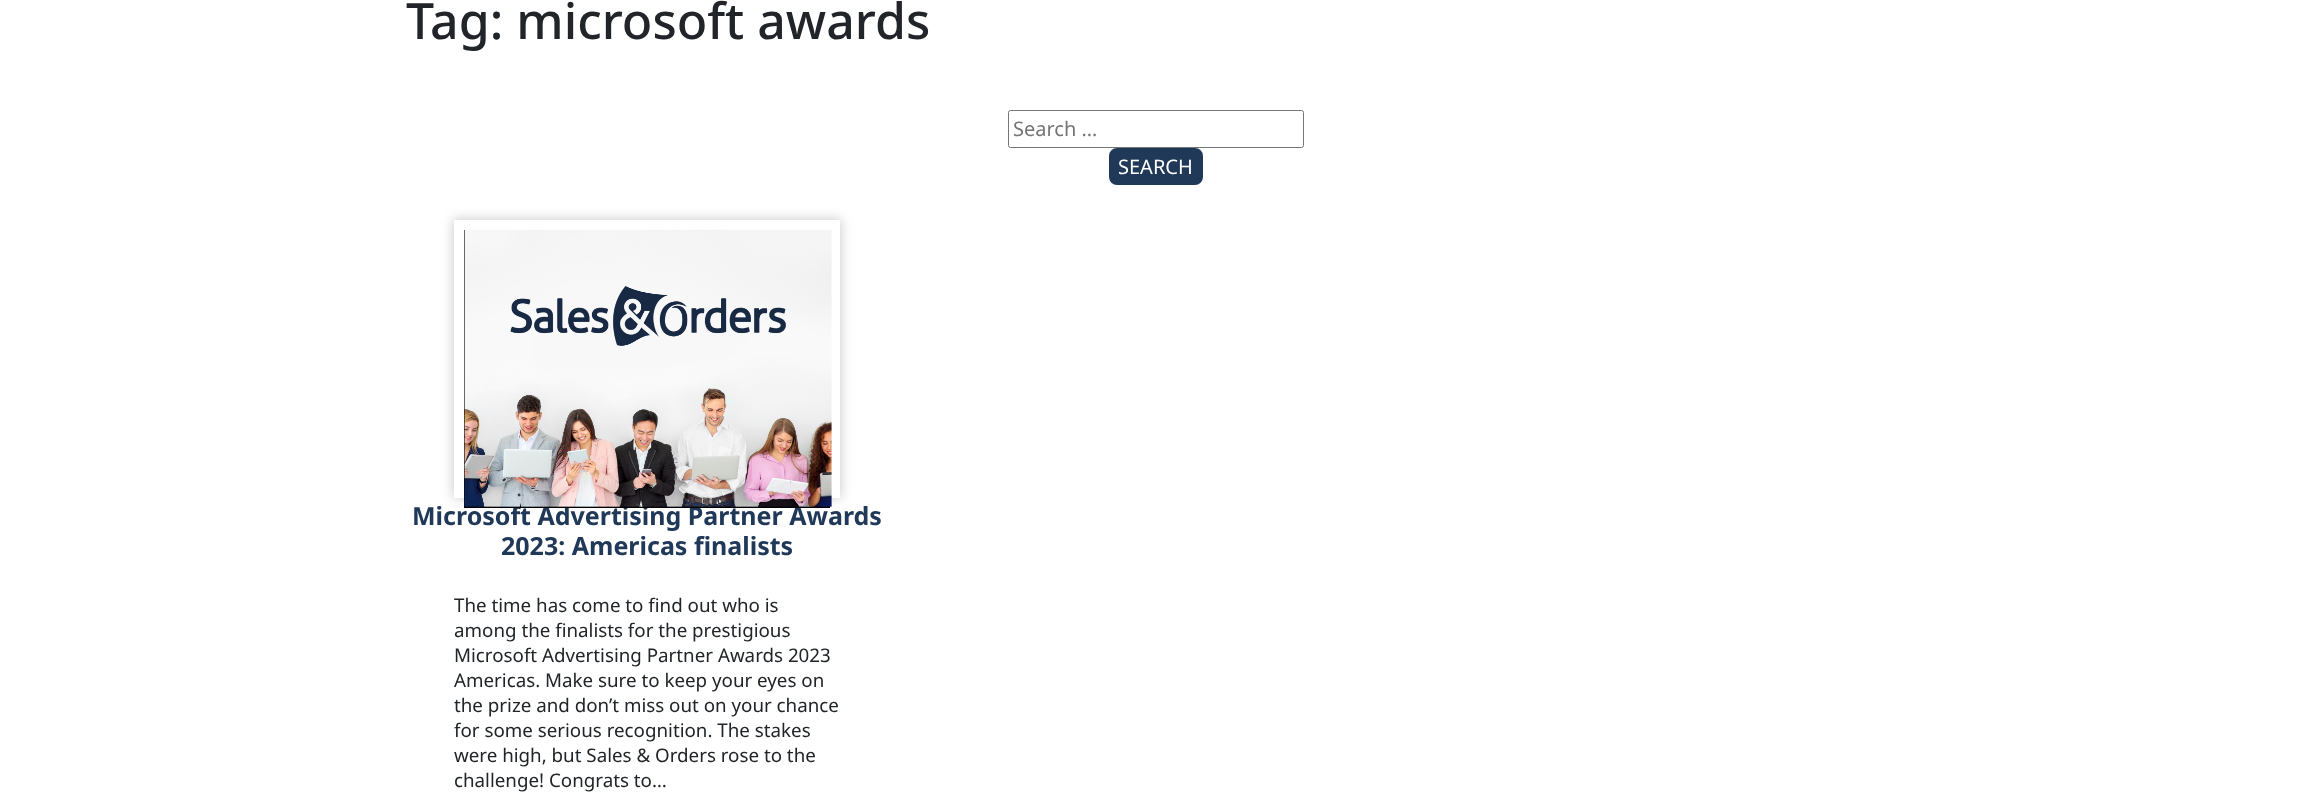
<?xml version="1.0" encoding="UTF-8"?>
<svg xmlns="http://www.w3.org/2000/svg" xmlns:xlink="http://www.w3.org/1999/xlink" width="2311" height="808">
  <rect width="100%" height="100%" fill="#ffffff" />
  <rect x="1008.5" y="110.5" width="295" height="37" rx="2" fill="none" stroke="#767676" />
  <rect x="1110.5" y="149.5" width="91" height="34" rx="6.5" fill="#203959" stroke="#203959" stroke-width="3" />
  <rect x="453" y="219" width="388" height="279" fill="#000000" fill-opacity="0.2" filter="blur(6px)" />
  <rect x="459" y="225" width="376" height="268" fill="none" stroke="#ffffff" stroke-width="10" />
  <text x="406" y="39" style="font-family: Noto Sans; font-size: 50px; font-weight: 500; fill: #212529">Tag: microsoft awards</text>
  <text x="1013" y="136" style="font-family: Noto Sans; font-size: 20px; fill: #757575">Search …</text>
  <text x="1118" y="174" style="font-family: Noto Sans; font-size: 20px; fill: #ffffff">SEARCH</text>
  <text x="412" y="525" style="font-family: Noto Sans; font-size: 25px; font-weight: bold; fill: #203959">Microsoft Advertising Partner Awards</text>
  <rect x="464" y="230" width="366" height="278" fill="#000000" />
  <image x="464" y="229" width="368" height="278" xlink:href="image1.png" />
  <text x="501" y="555" style="font-family: Noto Sans; font-size: 25px; font-weight: bold; fill: #203959">2023: Americas finalists</text>
  <text x="454" y="612" style="font-family: Noto Sans; font-size: 18.75px; fill: #212529">The time has come to find out who is</text>
  <text x="454" y="637" style="font-family: Noto Sans; font-size: 18.75px; fill: #212529">among the finalists for the prestigious</text>
  <text x="454" y="662" style="font-family: Noto Sans; font-size: 18.75px; fill: #212529">Microsoft Advertising Partner Awards 2023</text>
  <text x="454" y="687" style="font-family: Noto Sans; font-size: 18.75px; fill: #212529">Americas. Make sure to keep your eyes on</text>
  <text x="454" y="712" style="font-family: Noto Sans; font-size: 18.75px; fill: #212529">the prize and don’t miss out on your chance</text>
  <text x="454" y="737" style="font-family: Noto Sans; font-size: 18.75px; fill: #212529">for some serious recognition. The stakes</text>
  <text x="454" y="762" style="font-family: Noto Sans; font-size: 18.75px; fill: #212529">were high, but Sales &amp; Orders rose to the</text>
  <text x="454" y="787" style="font-family: Noto Sans; font-size: 18.75px; fill: #212529">challenge! Congrats to…</text>
</svg>
